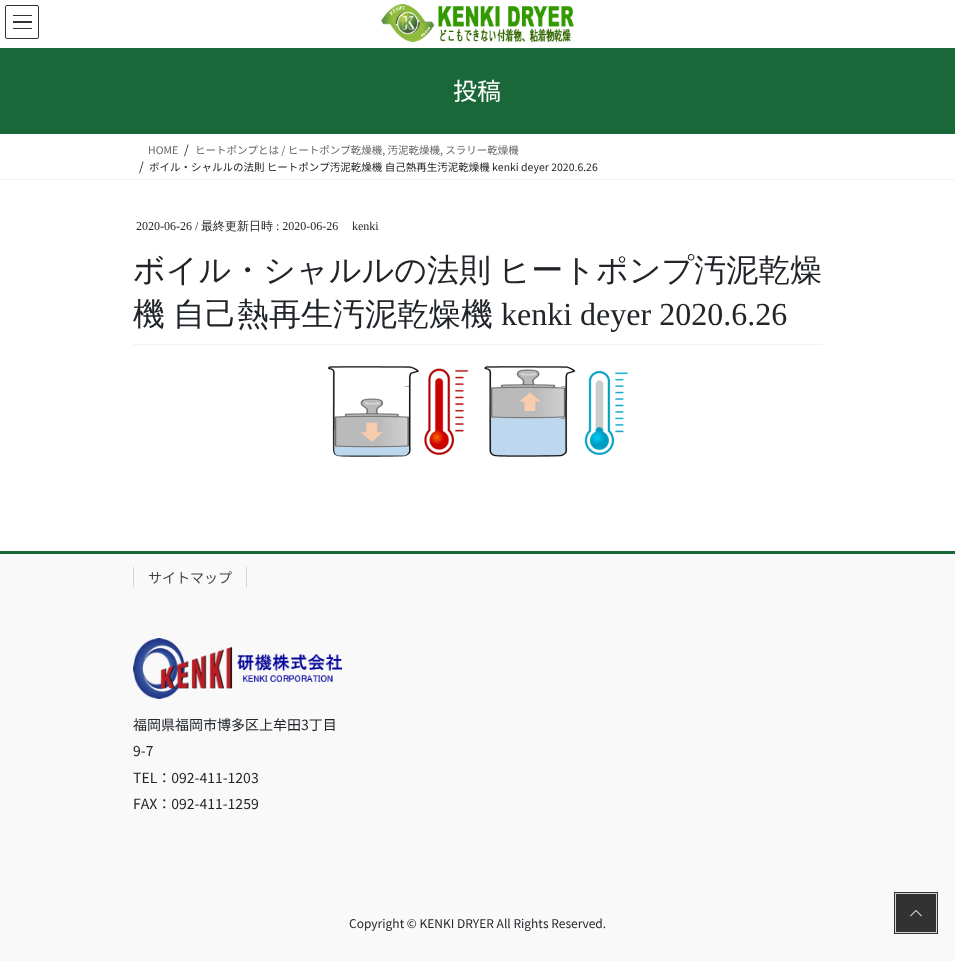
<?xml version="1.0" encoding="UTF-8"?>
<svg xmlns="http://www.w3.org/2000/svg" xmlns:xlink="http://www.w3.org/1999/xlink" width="955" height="961">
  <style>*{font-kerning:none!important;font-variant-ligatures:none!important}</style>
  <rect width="100%" height="100%" fill="#ffffff" />
  <rect x="13" y="15" width="19" height="1" fill="#333333" />
  <rect x="13" y="21" width="19" height="2" fill="#333333" />
  <rect x="13" y="28" width="19" height="1" fill="#333333" />
  <rect x="5.5" y="5.5" width="33" height="33" rx="1.5" fill="none" stroke="#333333" />
  <image x="381" y="4" width="193" height="38" xlink:href="image1.png" />
  <rect y="48" width="955" height="86" fill="#1a6839" />
  <rect y="179" width="955" height="1" fill="#f2f2f2" />
  <rect x="133" y="344" width="690" height="1" fill="#f2f2f2" />
  <image x="328" y="366" width="300" height="91" xlink:href="image2.png" />
  <rect y="554" width="955" height="407" fill="#f9f9f9" />
  <rect y="551" width="955" height="3" fill="#1a6839" />
  <rect x="246" y="567" width="1" height="20" fill="#d4d4d4" />
  <rect x="133" y="567" width="1" height="20" fill="#d4d4d4" />
  <image x="133" y="638" width="209" height="61" xlink:href="image3.png" />
  <rect x="895" y="893" width="42" height="40" fill="none" stroke="#323232" stroke-width="2" />
  <rect x="895.5" y="893.5" width="41" height="39" fill="none" stroke="#d6d6d6" />
  <rect x="896" y="894" width="40" height="38" fill="#323232" />
  <image x="910" y="910" width="12" height="7" xlink:href="image4.png" />
  <text x="453" y="100" style="font-family: Noto Sans JP; font-size: 24px; fill: #ffffff">投稿</text>
  <text x="148" y="154" style="font-family: Noto Sans JP; font-size: 10.5px; fill: #666666">HOME</text>
  <text x="184" y="154" style="font-family: Noto Sans JP; font-size: 12px; fill: #212529">/</text>
  <text x="195" y="154" style="font-family: Noto Sans JP; font-size: 10.5px; fill: #666666">ヒートポンプとは / ヒートポンプ乾燥機, 汚泥乾燥機, スラリー乾燥機</text>
  <text x="139" y="171" style="font-family: Noto Sans JP; font-size: 12px; fill: #212529">/</text>
  <text x="149" y="171" style="font-family: Noto Sans JP; font-size: 10.5px; fill: #212529">ボイル・シャルルの法則 ヒートポンプ汚泥乾燥機 自己熱再生汚泥乾燥機 kenki deyer 2020.6.26</text>
  <text x="136" y="230" style="font-family: Liberation Serif; font-size: 12px; fill: #212529">2020-06-26</text>
  <text x="195" y="230" style="font-family: Liberation Serif; font-size: 12px; fill: #212529">/</text>
  <text x="201" y="230" style="font-family: WenQuanYi Zen Hei; font-size: 12px; font-weight: 500; fill: #212529">最終更新日時</text>
  <text x="276" y="230" style="font-family: Liberation Serif; font-size: 12px; fill: #212529">: 2020-06-26</text>
  <text x="352" y="230" style="font-family: Liberation Serif; font-size: 12px; fill: #212529">kenki</text>
  <text x="133" y="281" word-spacing="-2" style="font-family: WenQuanYi Zen Hei; font-size: 32px; font-weight: 500; fill: #212529">ボイル・シャルルの法則 ヒートポンプ汚泥乾燥</text>
  <text x="133" y="325" style="font-family: WenQuanYi Zen Hei; font-size: 32px; font-weight: 500; fill: #212529">機</text>
  <text x="173" y="325" style="font-family: WenQuanYi Zen Hei; font-size: 32px; font-weight: 500; fill: #212529">自己熱再生汚泥乾燥機</text>
  <text x="501" y="325" style="font-family: Liberation Serif; font-size: 32px; fill: #212529">kenki deyer 2020.6.26</text>
  <text x="148" y="583" style="font-family: Noto Sans JP; font-size: 14px; fill: #464646">サイトマップ</text>
  <text x="133" y="730" style="font-family: Noto Sans JP; font-size: 14px; fill: #212529">福岡県福岡市博多区上牟田3丁目</text>
  <text x="133" y="756" style="font-family: Noto Sans JP; font-size: 14px; fill: #212529">9-7</text>
  <text x="133" y="783" style="font-family: Noto Sans JP; font-size: 14px; fill: #212529">TEL：092-411-1203</text>
  <text x="133" y="809" style="font-family: Noto Sans JP; font-size: 14px; fill: #212529">FAX：092-411-1259</text>
  <text x="349" y="928" style="font-family: Noto Sans JP; font-size: 12px; fill: #212529">Copyright © KENKI DRYER All Rights Reserved.</text>
</svg>
